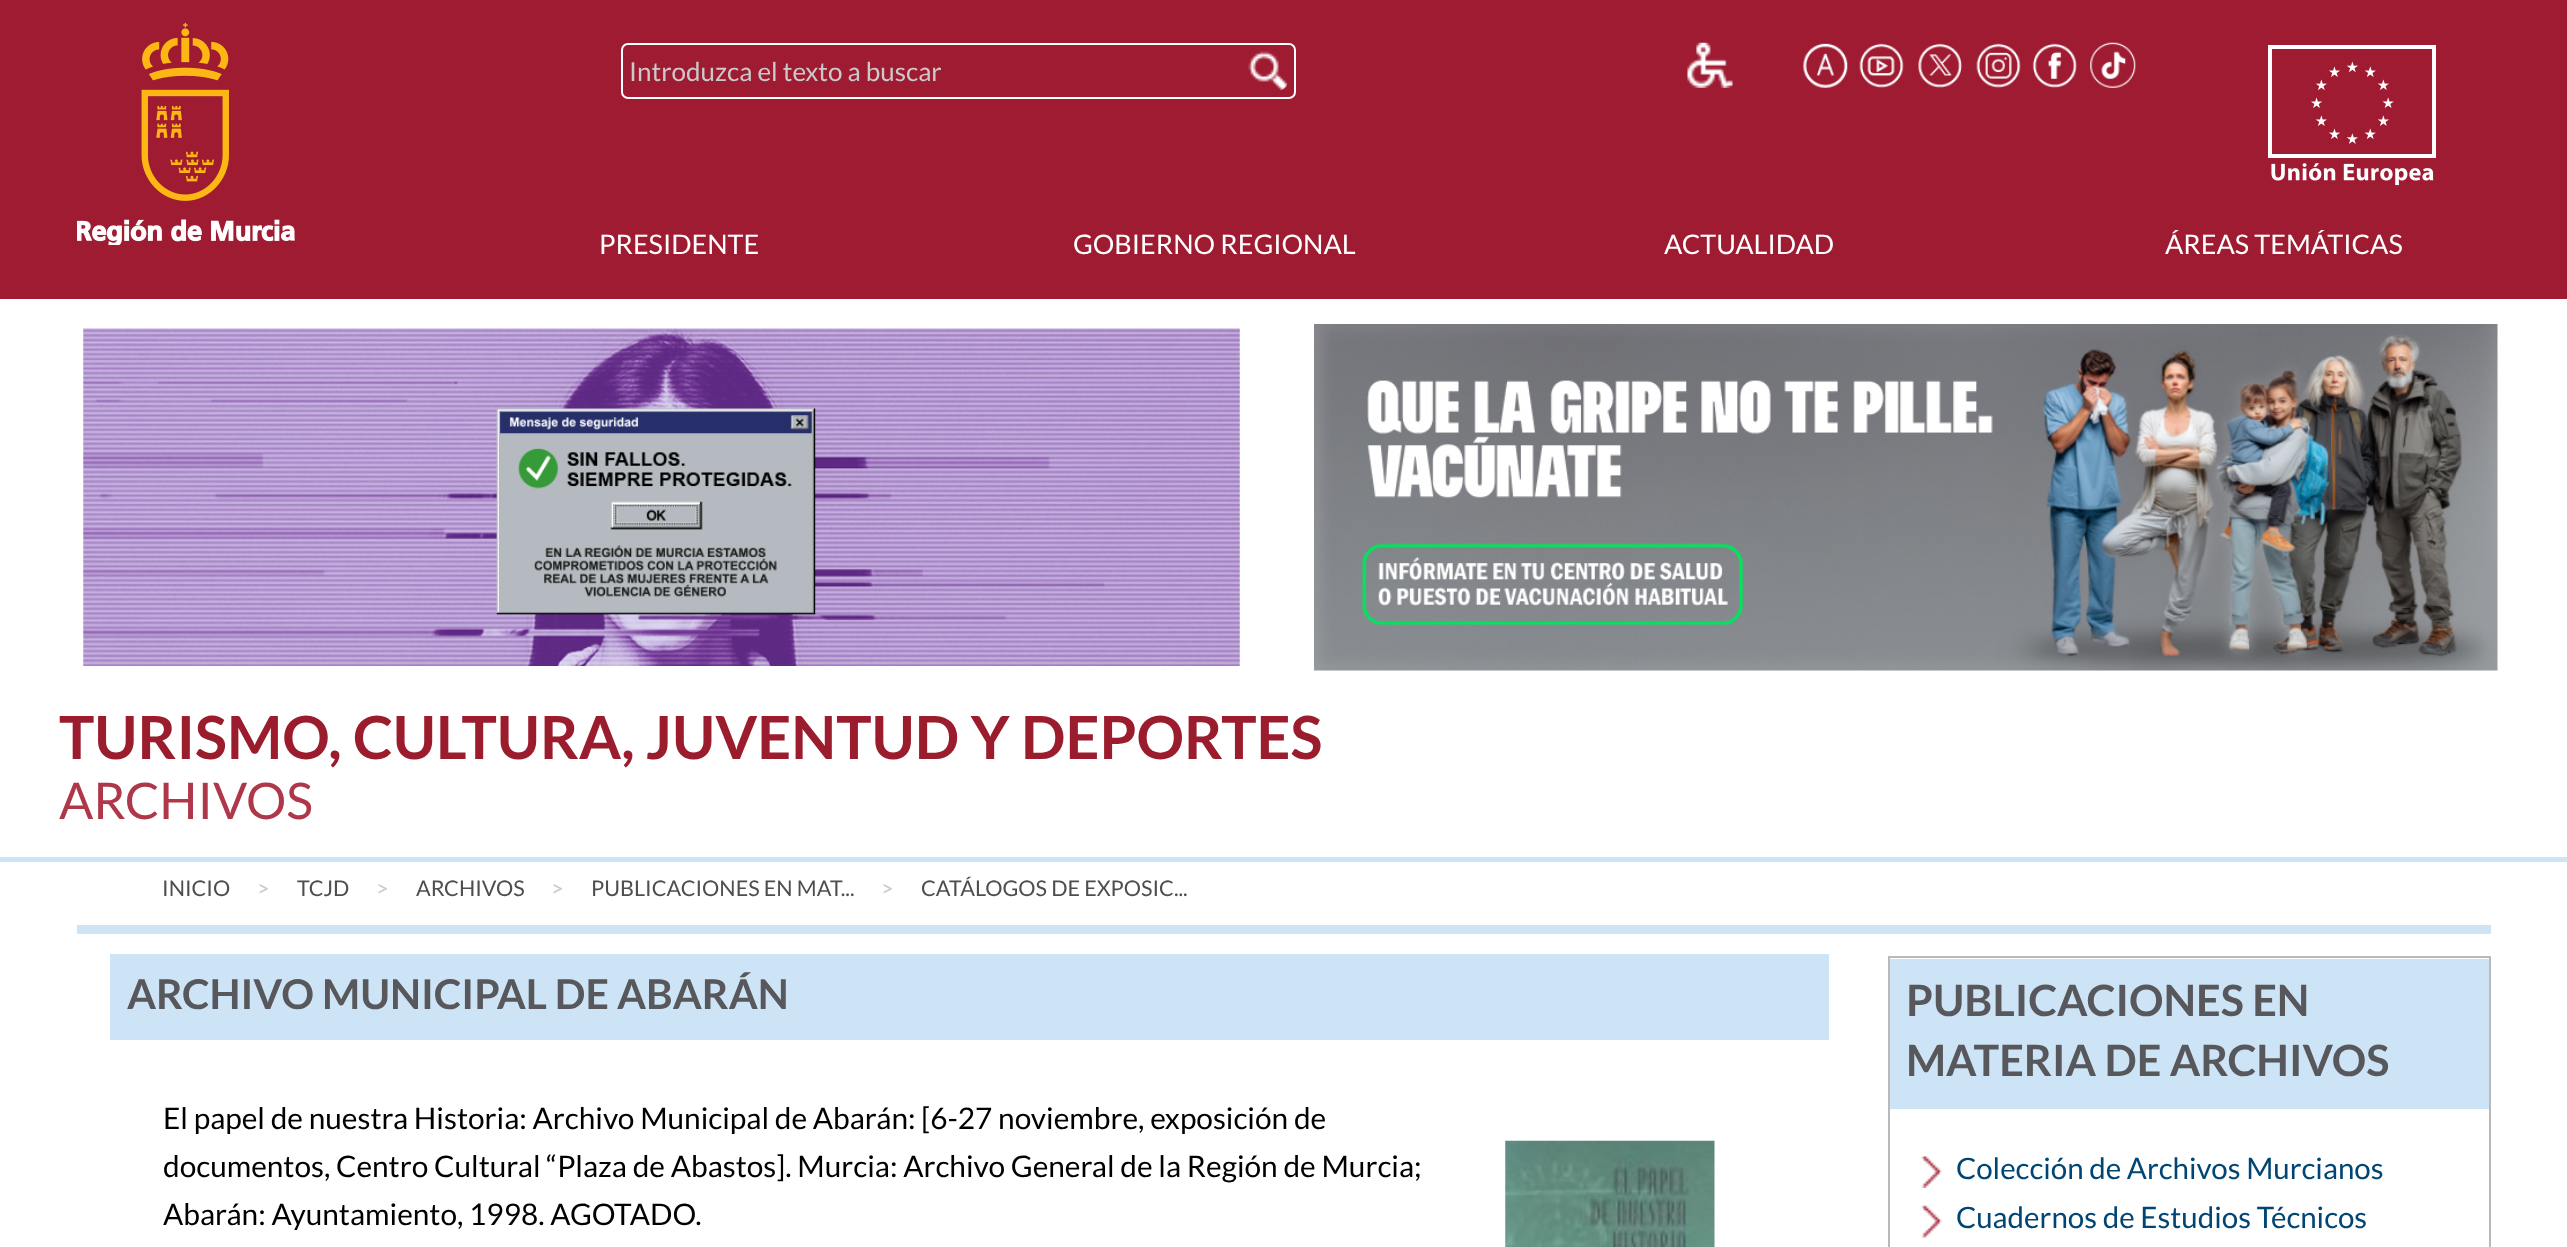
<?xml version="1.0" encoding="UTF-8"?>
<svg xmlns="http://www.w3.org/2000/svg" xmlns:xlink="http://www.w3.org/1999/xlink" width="2567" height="1247">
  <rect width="100%" height="100%" fill="#ffffff" />
  <rect width="2567" height="299" fill="#9e1b32" />
  <image x="77" y="23" width="218" height="222" xlink:href="image1.png" />
  <rect x="622" y="44" width="673" height="54" rx="6" fill="none" stroke="#ffffff" stroke-width="2" />
  <image x="1248" y="51" width="39" height="39" xlink:href="image2.png" />
  <image x="1687" y="42" width="46" height="46" xlink:href="image3.png" />
  <image x="1803" y="43" width="45" height="45" xlink:href="image4.png" />
  <image x="1859" y="43" width="45" height="45" xlink:href="image5.png" />
  <image x="1918" y="43" width="44" height="45" xlink:href="image6.png" />
  <image x="1976" y="43" width="45" height="45" xlink:href="image7.png" />
  <image x="2032" y="43" width="45" height="45" xlink:href="image8.png" />
  <image x="2090" y="42" width="46" height="46" xlink:href="image9.png" />
  <image x="2268" y="45" width="168" height="141" xlink:href="image10.png" />
  <image x="83" y="328" width="1157" height="338" xlink:href="image11.png" />
  <image x="1314" y="324" width="1184" height="347" xlink:href="image12.png" />
  <rect y="857" width="2567" height="5" fill="#cce4f5" />
  <rect x="77" y="925" width="2414" height="9" fill="#cce4f5" />
  <rect x="110" y="954" width="1719" height="86" fill="#cce4f5" />
  <image x="1505" y="1140" width="210" height="107" xlink:href="image13.png" />
  <rect x="1889" y="957" width="601" height="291" fill="none" stroke="#b9b9b9" stroke-width="2" />
  <rect x="1890" y="959" width="599" height="150" fill="#cce4f5" />
  <image x="1921" y="1156" width="22" height="32" xlink:href="image14.png" />
  <image x="1921" y="1205" width="22" height="33" xlink:href="image15.png" />
  <text x="629" y="81" style="font-family: Lato; font-size: 26px; fill: #cacaca">Introduzca el texto a buscar</text>
  <text x="599" y="254" style="font-family: Lato; font-size: 27px; fill: #ffffff">PRESIDENTE</text>
  <text x="1073" y="254" style="font-family: Lato; font-size: 27px; fill: #ffffff">GOBIERNO REGIONAL</text>
  <text x="1664" y="254" style="font-family: Lato; font-size: 27px; fill: #ffffff">ACTUALIDAD</text>
  <text x="2165" y="254" style="font-family: Lato; font-size: 27px; fill: #ffffff">ÁREAS TEMÁTICAS</text>
  <text x="59" y="759" style="font-family: Lato; font-size: 59.4px; font-weight: bold; fill: #9b1d2d">TURISMO, CULTURA, JUVENTUD Y DEPORTES</text>
  <text x="59" y="819" style="font-family: Lato; font-size: 50.5px; fill: #ae374a">ARCHIVOS</text>
  <text x="162" y="896" style="font-family: Lato; font-size: 21.6px; fill: #4e4e4e">INICIO</text>
  <text x="257" y="896" style="font-family: Lato; font-size: 21.6px; fill: #cacaca">&gt;</text>
  <text x="297" y="896" style="font-family: Lato; font-size: 21.6px; fill: #4e4e4e">TCJD</text>
  <text x="376" y="896" style="font-family: Lato; font-size: 21.6px; fill: #cacaca">&gt;</text>
  <text x="416" y="896" style="font-family: Lato; font-size: 21.6px; fill: #4e4e4e">ARCHIVOS</text>
  <text x="551" y="896" style="font-family: Lato; font-size: 21.6px; fill: #cacaca">&gt;</text>
  <text x="591" y="896" style="font-family: Lato; font-size: 21.6px; fill: #4e4e4e">PUBLICACIONES EN MAT...</text>
  <text x="881" y="896" style="font-family: Lato; font-size: 21.6px; fill: #cacaca">&gt;</text>
  <text x="921" y="896" style="font-family: Lato; font-size: 21.6px; fill: #4e4e4e">CATÁLOGOS DE EXPOSIC...</text>
  <text x="127" y="1009" style="font-family: Lato; font-size: 41px; font-weight: bold; fill: #57575c">ARCHIVO MUNICIPAL DE ABARÁN</text>
  <text x="163" y="1129" style="font-family: Lato; font-size: 29.8px; fill: #000000">El papel de nuestra Historia: Archivo Municipal de Abarán: [6-27 noviembre, exposición de</text>
  <text x="163" y="1177" style="font-family: Lato; font-size: 29.8px; fill: #000000">documentos, Centro Cultural “Plaza de Abastos]. Murcia: Archivo General de la Región de Murcia;</text>
  <text x="163" y="1225" style="font-family: Lato; font-size: 29.8px; fill: #000000">Abarán: Ayuntamiento, 1998. AGOTADO.</text>
  <text x="1906" y="1016" style="font-family: Lato; font-size: 43.1px; font-weight: bold; fill: #57575c">PUBLICACIONES EN</text>
  <text x="1906" y="1076" style="font-family: Lato; font-size: 43.1px; font-weight: bold; fill: #57575c">MATERIA DE ARCHIVOS</text>
  <text x="1956" y="1179" style="font-family: Lato; font-size: 29.5px; fill: #004573">Colección de Archivos Murcianos</text>
  <text x="1956" y="1228" style="font-family: Lato; font-size: 29.5px; fill: #004573">Cuadernos de Estudios Técnicos</text>
</svg>
